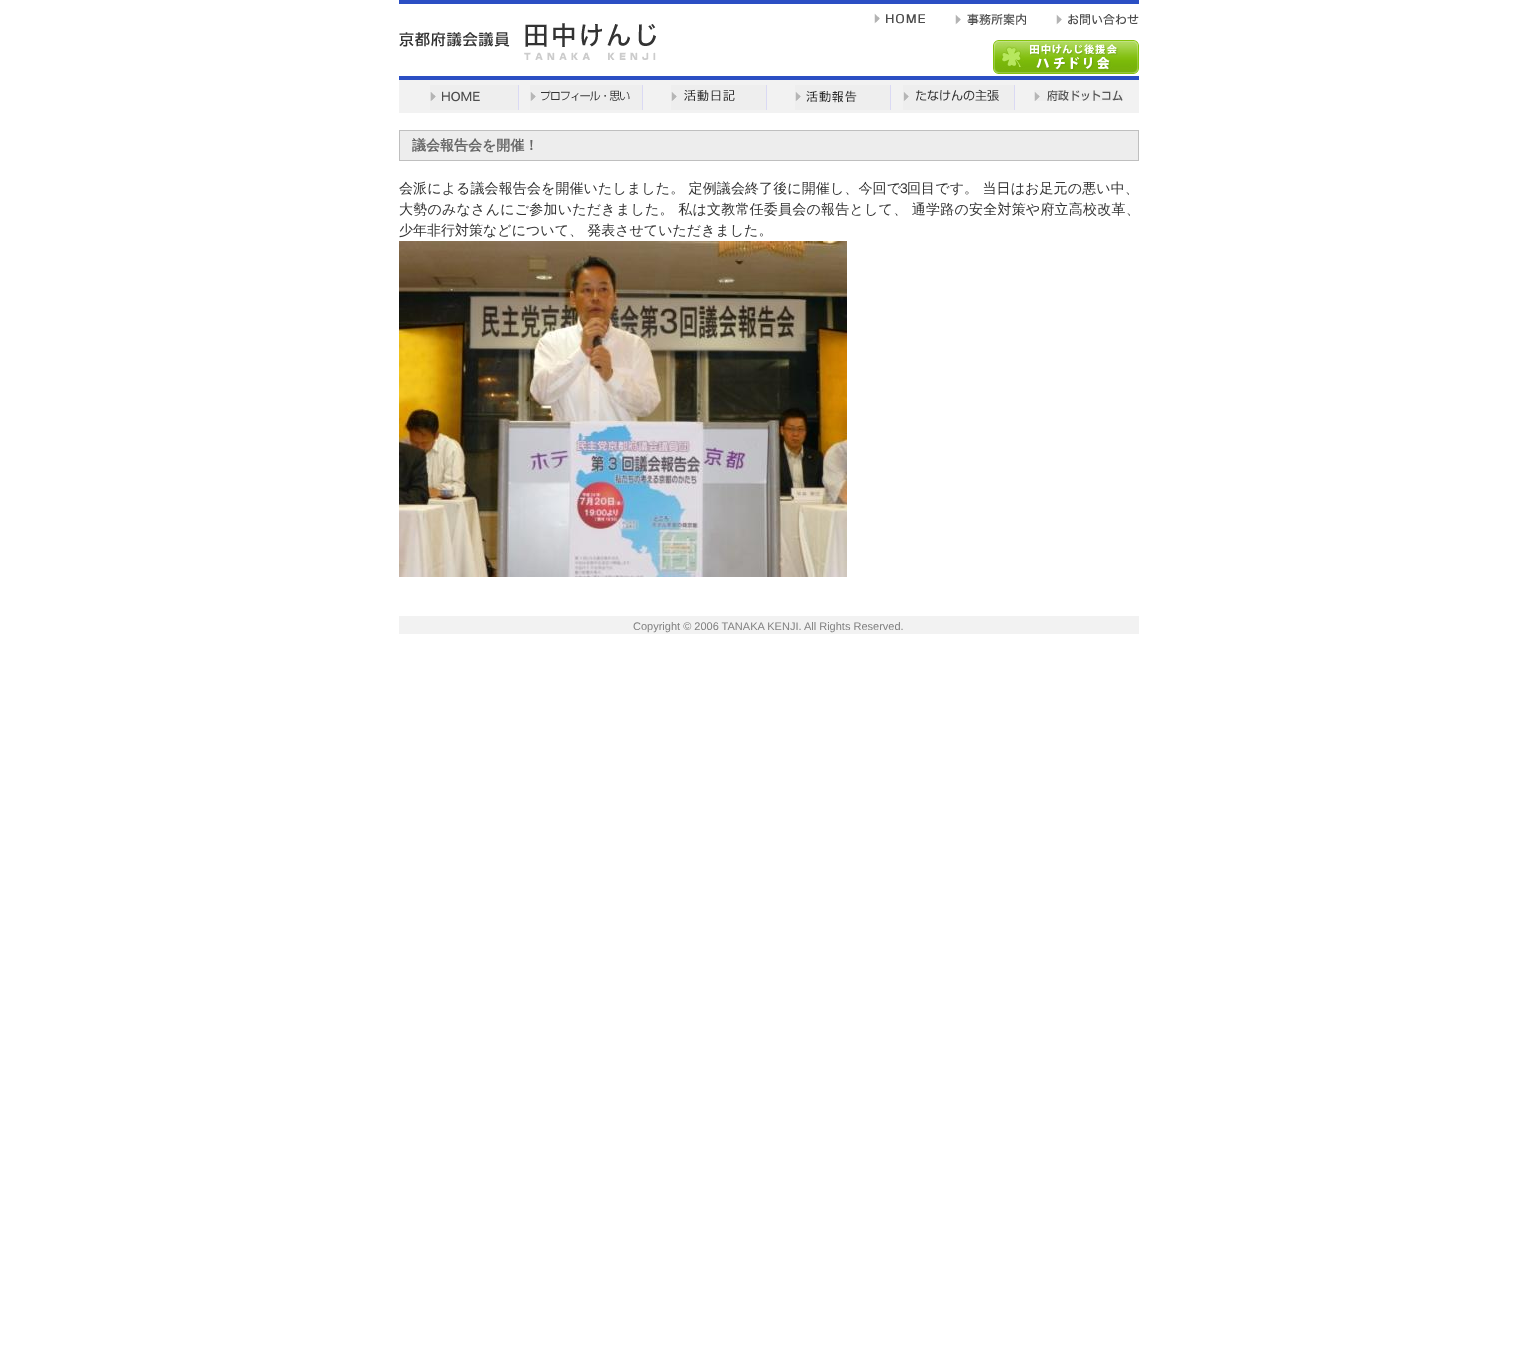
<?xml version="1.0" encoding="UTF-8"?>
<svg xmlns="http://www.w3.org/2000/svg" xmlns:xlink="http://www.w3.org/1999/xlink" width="1537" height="1361">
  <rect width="100%" height="100%" fill="#ffffff" />
  <rect x="399" width="740" height="4" fill="#2b4fc4" />
  <rect x="399" y="76" width="740" height="4" fill="#2b4fc4" />
  <image x="399" y="23" width="257" height="37" xlink:href="image1.png" />
  <image x="874" y="13" width="51" height="11" xlink:href="image2.png" />
  <image x="955" y="13" width="71" height="12" xlink:href="image3.png" />
  <image x="1056" y="14" width="83" height="11" xlink:href="image4.png" />
  <image x="993" y="40" width="146" height="34" xlink:href="image5.png" />
  <rect x="399" y="80" width="740" height="33" fill="#f2f2f2" />
  <image x="430" y="85" width="89" height="25" xlink:href="image6.png" />
  <image x="530" y="85" width="113" height="25" xlink:href="image7.png" />
  <image x="671" y="85" width="96" height="25" xlink:href="image8.png" />
  <image x="795" y="85" width="96" height="25" xlink:href="image9.png" />
  <image x="903" y="85" width="112" height="25" xlink:href="image10.png" />
  <image x="1034" y="90" width="89" height="11" xlink:href="image11.png" />
  <rect x="399.5" y="130.5" width="739" height="30" fill="#ededed" stroke="#bfbfbf" />
  <image x="399" y="241" width="448" height="336" xlink:href="image12.png" />
  <rect x="399" y="616" width="740" height="18" fill="#f2f2f2" />
  <text x="412" y="150" style="font-family: WenQuanYi Zen Hei; font-size: 14px; font-weight: bold; fill: #666666">議会報告会を開催！</text>
  <text x="399" y="193" style="font-family: WenQuanYi Zen Hei; font-size: 14px; font-weight: 500; letter-spacing: 0.1px; fill: #333333">会派による議会報告会を開催いたしました。 定例議会終了後に開催し、今回で</text>
  <text x="900" y="193" style="font-family: Liberation Sans; font-size: 14px; letter-spacing: 0.1px; fill: #333333">3</text>
  <text x="907" y="193" style="font-family: WenQuanYi Zen Hei; font-size: 14px; font-weight: 500; letter-spacing: 0.1px; fill: #333333">回目です。 当日はお足元の悪い中、</text>
  <text x="399" y="214" style="font-family: WenQuanYi Zen Hei; font-size: 14px; font-weight: 500; letter-spacing: 0.22px; fill: #333333">大勢のみなさんにご参加いただきました。 私は文教常任委員会の報告として、 通学路の安全対策や府立高校改革、</text>
  <text x="399" y="235" style="font-family: WenQuanYi Zen Hei; font-size: 14px; font-weight: 500; fill: #333333">少年非行対策などについて、 発表させていただきました。</text>
  <text x="633" y="630" style="font-family: Liberation Sans; font-size: 11px; fill: #808080">Copyright © 2006 TANAKA KENJI. All Rights Reserved.</text>
</svg>
